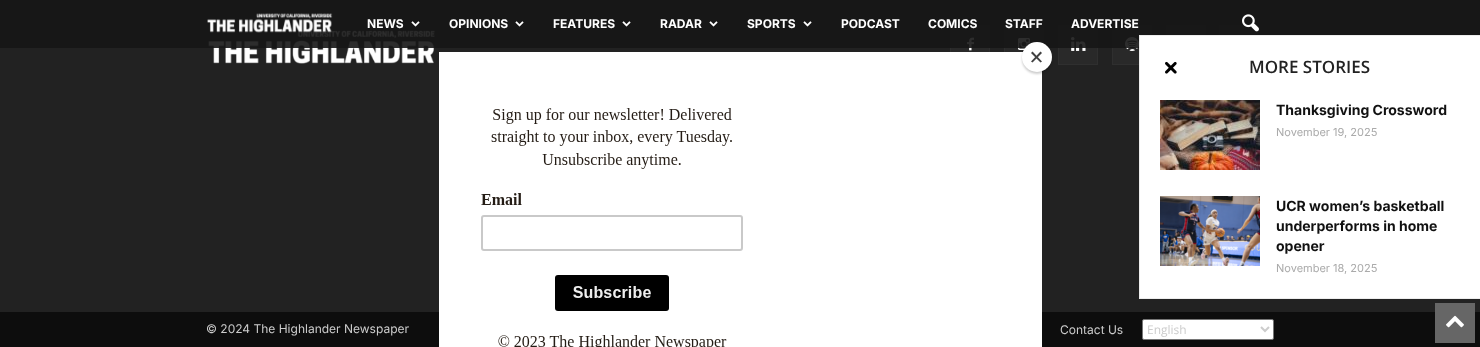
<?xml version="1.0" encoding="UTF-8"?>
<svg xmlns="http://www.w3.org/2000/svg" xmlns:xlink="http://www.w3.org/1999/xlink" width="1480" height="347">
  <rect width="100%" height="100%" fill="#0d0d0d" />
  <rect width="1480" height="312" fill="#222222" />
  <image x="208" y="30" width="227" height="34" xlink:href="image1.png" />
  <rect x="951" y="26" width="38" height="26" fill="#292929" />
  <image x="967" y="37" width="7" height="14" xlink:href="image2.png" />
  <rect x="950.5" y="25.5" width="39" height="39" fill="none" stroke="#2f2f2f" />
  <rect x="1005" y="26" width="38" height="26" fill="#292929" />
  <image x="1018" y="38" width="12" height="12" xlink:href="image3.png" />
  <rect x="1004.5" y="25.5" width="39" height="39" fill="none" stroke="#2f2f2f" />
  <rect x="1059" y="26" width="38" height="38" fill="#292929" />
  <image x="1071" y="37" width="15" height="14" xlink:href="image4.png" />
  <rect x="1058.5" y="25.5" width="39" height="39" fill="none" stroke="#2f2f2f" />
  <rect x="1113" y="26" width="38" height="38" fill="#292929" />
  <image x="1125" y="37" width="14" height="14" xlink:href="image5.png" />
  <rect x="1112.5" y="25.5" width="39" height="39" fill="none" stroke="#2f2f2f" />
  <rect x="1167" y="26" width="38" height="9" fill="#292929" />
  <rect x="1166.5" y="25.5" width="39" height="39" fill="none" stroke="#2f2f2f" />
  <rect x="1220" y="26" width="38" height="9" fill="#292929" />
  <rect x="1219.5" y="25.5" width="39" height="39" fill="none" stroke="#2f2f2f" />
  <rect width="1480" height="48" fill="#161616" fill-opacity="0.9" />
  <image x="207" y="13" width="126" height="20" xlink:href="image6.png" />
  <image x="411" y="21" width="9" height="6" xlink:href="image7.png" />
  <image x="515" y="21" width="9" height="6" xlink:href="image8.png" />
  <image x="622" y="21" width="9" height="6" xlink:href="image7.png" />
  <image x="709" y="21" width="9" height="6" xlink:href="image7.png" />
  <image x="803" y="21" width="9" height="6" xlink:href="image9.png" />
  <image x="1242" y="14" width="17" height="18" xlink:href="image10.png" />
  <rect x="1142.5" y="319.5" width="131" height="20" rx="1.5" fill="#ffffff" stroke="#767676" />
  <path d="M 1261 327 l 4 4 l 4 -4" fill="none" stroke="#cccccc" stroke-width="2" />
  <image x="439" y="52" width="603" height="295" xlink:href="image11.png" />
  <rect x="1022" y="44" width="30" height="30" rx="15" fill="#000000" fill-opacity="0.2" filter="blur(1px)" />
  <circle cx="1037" cy="57" r="15" fill="#ffffff" />
  <path d="M 1040.5 51.5 l 1.5 1.5 l -9.5 9.5 l -1.5 -1 z" fill="#414141" />
  <path d="M 1031 53 l 1.5 -1.5 l 9.5 10 l -1.5 1 z" fill="#414141" />
  <rect x="1140" y="36" width="340" height="262" fill="#ffffff" />
  <rect x="1139" y="35" width="341" height="1" fill="#ededed" />
  <rect x="1139" y="298" width="341" height="1" fill="#ededed" />
  <rect x="1139" y="35" width="1" height="264" fill="#ededed" />
  <image x="1165" y="61" width="12" height="13" xlink:href="image12.png" />
  <image x="1160" y="100" width="100" height="70" xlink:href="image13.png" />
  <image x="1160" y="196" width="100" height="70" xlink:href="image14.png" />
  <rect x="1435" y="303" width="40" height="40" fill="#666666" />
  <image x="1446" y="315" width="18" height="13" xlink:href="image15.png" />
  <text x="367" y="28" style="font-family: Inter; font-size: 12px; font-weight: bold; fill: #ffffff">NEWS</text>
  <text x="449" y="28" style="font-family: Inter; font-size: 12px; font-weight: bold; fill: #ffffff">OPINIONS</text>
  <text x="553" y="28" style="font-family: Inter; font-size: 12px; font-weight: bold; fill: #ffffff">FEATURES</text>
  <text x="660" y="28" style="font-family: Inter; font-size: 12px; font-weight: bold; fill: #ffffff">RADAR</text>
  <text x="747" y="28" style="font-family: Inter; font-size: 12px; font-weight: bold; fill: #ffffff">SPORTS</text>
  <text x="841" y="28" style="font-family: Inter; font-size: 12px; font-weight: bold; fill: #ffffff">PODCAST</text>
  <text x="928" y="28" style="font-family: Inter; font-size: 12px; font-weight: bold; fill: #ffffff">COMICS</text>
  <text x="1005" y="28" style="font-family: Inter; font-size: 12px; font-weight: bold; fill: #ffffff">STAFF</text>
  <text x="1071" y="28" style="font-family: Inter; font-size: 12px; font-weight: bold; fill: #ffffff">ADVERTISE</text>
  <text x="206" y="333" style="font-family: Inter; font-size: 12px; fill: #cccccc">© 2024 The Highlander Newspaper</text>
  <text x="1060" y="334" style="font-family: Inter; font-size: 12px; fill: #cccccc">Contact Us</text>
  <text x="1147" y="334" style="font-family: Open Sans; font-size: 12px; fill: #cccccc">English</text>
  <text x="1249" y="73" style="font-family: Open Sans; font-size: 17px; font-weight: 600; fill: #222222">MORE STORIES</text>
  <text x="1276" y="115" style="font-family: Inter; font-size: 14px; font-weight: bold; fill: #111111">Thanksgiving Crossword</text>
  <text x="1276" y="136" style="font-family: Inter; font-size: 11px; fill: #aaaaaa">November 19, 2025</text>
  <text x="1276" y="211" style="font-family: Inter; font-size: 14px; font-weight: bold; fill: #111111">UCR women’s basketball</text>
  <text x="1276" y="231" style="font-family: Inter; font-size: 14px; font-weight: bold; fill: #111111">underperforms in home</text>
  <text x="1276" y="251" style="font-family: Inter; font-size: 14px; font-weight: bold; fill: #111111">opener</text>
  <text x="1276" y="272" style="font-family: Inter; font-size: 11px; fill: #aaaaaa">November 18, 2025</text>
</svg>
